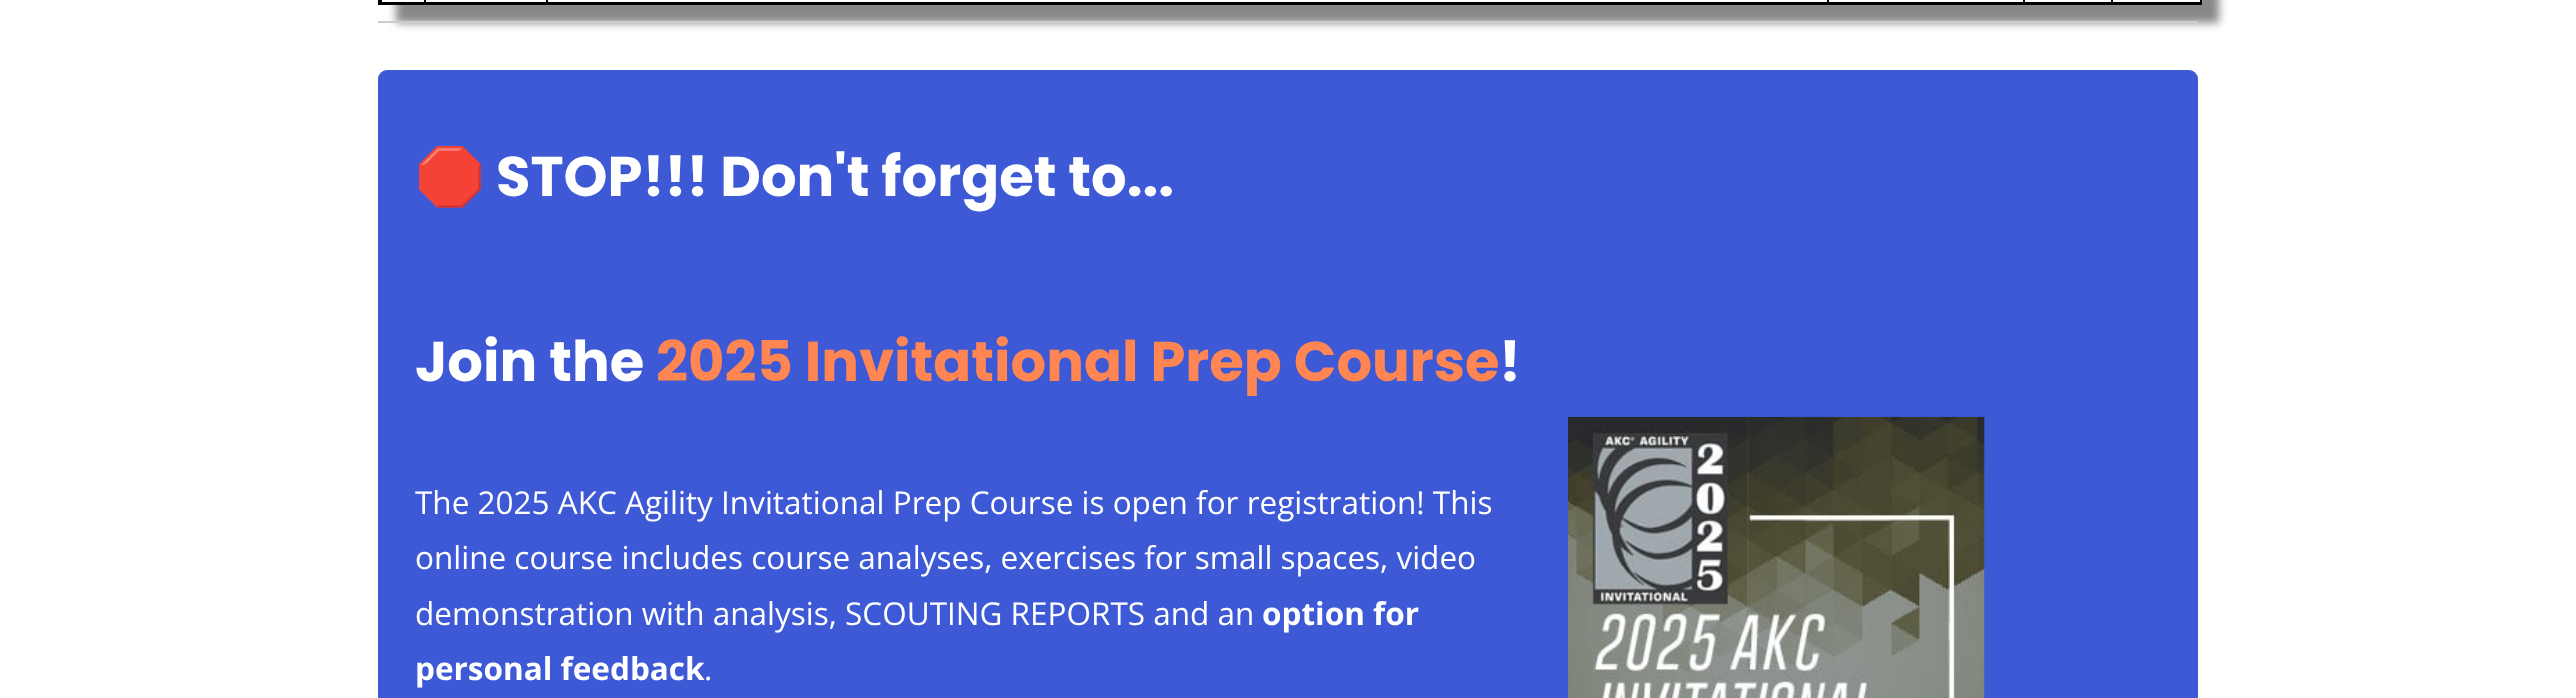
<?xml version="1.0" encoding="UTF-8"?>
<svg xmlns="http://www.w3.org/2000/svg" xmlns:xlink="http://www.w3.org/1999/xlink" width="2576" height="698">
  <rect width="100%" height="100%" fill="#ffffff" />
  <rect x="396" y="-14" width="1823" height="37" fill="#888888" filter="blur(4.5px)" />
  <rect x="379" y="-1" width="1822" height="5" fill="none" stroke="#000000" stroke-width="2" />
  <rect x="382" width="1820" height="2" fill="#ffffff" />
  <rect x="2200" width="2" height="4" fill="#000000" />
  <rect x="380" y="2" width="1822" height="1" fill="#000000" />
  <rect x="380" width="2" height="4" fill="#000000" />
  <rect x="424" width="2" height="4" fill="#000000" />
  <rect x="546" width="2" height="4" fill="#000000" />
  <rect x="1827" width="2" height="4" fill="#000000" />
  <rect x="2023" width="2" height="4" fill="#000000" />
  <rect x="2111" width="2" height="4" fill="#000000" />
  <rect x="378" y="21" width="1820" height="2" fill="#cccccc" />
  <rect x="378" y="70" width="1820" height="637" rx="9" fill="#3d59d6" />
  <image x="1568" y="416" width="417" height="282" xlink:href="image1.png" />
  <text x="415" y="196" style="font-family: Noto Color Emoji; font-size: 56px; font-weight: bold; fill: #ffffff">🛑</text>
  <text x="496" y="196" style="font-family: Poppins; font-size: 56px; font-weight: bold; fill: #ffffff">STOP!!! Don't forget to...</text>
  <text x="415" y="381" style="font-family: Poppins; font-size: 56px; font-weight: bold; fill: #ffffff">Join the</text>
  <text x="656" y="381" style="font-family: Poppins; font-size: 56px; font-weight: bold; fill: #ff8552">2025 Invitational Prep Course</text>
  <text x="1499" y="381" style="font-family: Poppins; font-size: 56px; font-weight: bold; fill: #ffffff">!</text>
  <text x="415" y="514" style="font-family: Open Sans; font-size: 31.5px; fill: #ffffff">The 2025 AKC Agility Invitational Prep Course is open for registration! This</text>
  <text x="415" y="569" style="font-family: Open Sans; font-size: 31.5px; fill: #ffffff">online course includes course analyses, exercises for small spaces, video</text>
  <text x="415" y="625" style="font-family: Open Sans; font-size: 31.5px; fill: #ffffff">demonstration with analysis, SCOUTING REPORTS and an</text>
  <text x="1262" y="625" style="font-family: Open Sans; font-size: 31.5px; font-weight: bold; fill: #ffffff">option for</text>
  <text x="415" y="680" style="font-family: Open Sans; font-size: 31.5px; font-weight: bold; fill: #ffffff">personal feedback</text>
  <text x="704" y="680" style="font-family: Open Sans; font-size: 31.5px; fill: #ffffff">.</text>
</svg>
